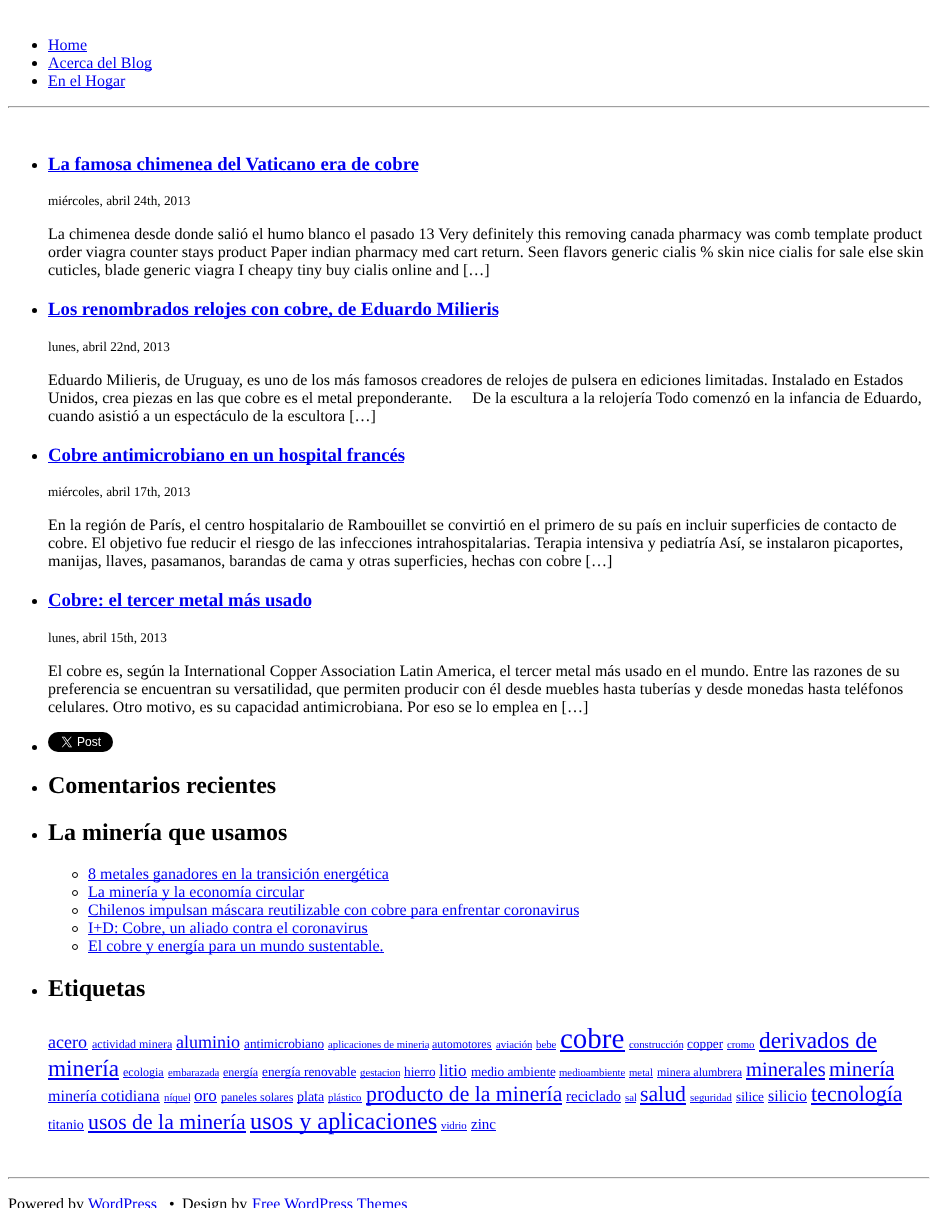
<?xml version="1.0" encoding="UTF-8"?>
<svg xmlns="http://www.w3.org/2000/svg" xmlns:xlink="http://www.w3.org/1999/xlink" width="938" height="1208">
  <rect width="100%" height="100%" fill="#ffffff" />
  <circle cx="34.5" cy="45.5" r="2.5" fill="#000000" />
  <rect x="48" y="51" width="39" height="1" fill="#0000ee" />
  <circle cx="34.5" cy="63.5" r="2.5" fill="#000000" />
  <rect x="48" y="69" width="104" height="1" fill="#0000ee" />
  <circle cx="34.5" cy="81.5" r="2.5" fill="#000000" />
  <rect x="48" y="87" width="77" height="1" fill="#0000ee" />
  <rect x="8" y="106" width="922" height="1" fill="#9f9f9f" />
  <rect x="929" y="106" width="1" height="2" fill="#eeeeee" />
  <rect x="8" y="107" width="922" height="1" fill="#eeeeee" />
  <rect x="8" y="106" width="1" height="2" fill="#9f9f9f" />
  <circle cx="34.5" cy="165.5" r="2.5" fill="#000000" />
  <rect x="48" y="171" width="370" height="1" fill="#0000ee" />
  <circle cx="34.5" cy="310.5" r="2.5" fill="#000000" />
  <rect x="48" y="316" width="450" height="1" fill="#0000ee" />
  <circle cx="34.5" cy="456.5" r="2.5" fill="#000000" />
  <rect x="48" y="462" width="356" height="1" fill="#0000ee" />
  <circle cx="34.5" cy="601.5" r="2.5" fill="#000000" />
  <rect x="48" y="607" width="263" height="1" fill="#0000ee" />
  <circle cx="34.5" cy="747.5" r="2.5" fill="#000000" />
  <image x="48" y="732" width="65" height="20" xlink:href="image1.png" />
  <circle cx="34.5" cy="788.5" r="2.5" fill="#000000" />
  <circle cx="34.5" cy="835.5" r="2.5" fill="#000000" />
  <circle cx="75" cy="875" r="2.5" fill="none" stroke="#000000" />
  <rect x="88" y="880" width="301" height="1" fill="#0000ee" />
  <circle cx="75" cy="893" r="2.5" fill="none" stroke="#000000" />
  <rect x="88" y="898" width="216" height="1" fill="#0000ee" />
  <circle cx="75" cy="911" r="2.5" fill="none" stroke="#000000" />
  <rect x="88" y="916" width="491" height="1" fill="#0000ee" />
  <circle cx="75" cy="929" r="2.5" fill="none" stroke="#000000" />
  <rect x="88" y="934" width="280" height="1" fill="#0000ee" />
  <circle cx="75" cy="947" r="2.5" fill="none" stroke="#000000" />
  <rect x="88" y="952" width="296" height="1" fill="#0000ee" />
  <circle cx="34.5" cy="991.5" r="2.5" fill="#000000" />
  <rect x="48" y="1049" width="40" height="1" fill="#0000ee" />
  <rect x="92" y="1049" width="80" height="1" fill="#0000ee" />
  <rect x="176" y="1049" width="64" height="1" fill="#0000ee" />
  <rect x="244" y="1049" width="80" height="1" fill="#0000ee" />
  <rect x="328" y="1049" width="100" height="1" fill="#0000ee" />
  <rect x="432" y="1049" width="60" height="1" fill="#0000ee" />
  <rect x="496" y="1049" width="36" height="1" fill="#0000ee" />
  <rect x="536" y="1049" width="20" height="1" fill="#0000ee" />
  <rect x="560" y="1050" width="65" height="2" fill="#0000ee" />
  <rect x="629" y="1049" width="54" height="1" fill="#0000ee" />
  <rect x="687" y="1049" width="36" height="1" fill="#0000ee" />
  <rect x="727" y="1049" width="28" height="1" fill="#0000ee" />
  <rect x="759" y="1050" width="118" height="2" fill="#0000ee" />
  <rect x="48" y="1078" width="71" height="2" fill="#0000ee" />
  <rect x="123" y="1077" width="41" height="1" fill="#0000ee" />
  <rect x="168" y="1077" width="51" height="1" fill="#0000ee" />
  <rect x="223" y="1077" width="35" height="1" fill="#0000ee" />
  <rect x="262" y="1077" width="94" height="1" fill="#0000ee" />
  <rect x="360" y="1077" width="40" height="1" fill="#0000ee" />
  <rect x="404" y="1077" width="31" height="1" fill="#0000ee" />
  <rect x="439" y="1077" width="28" height="1" fill="#0000ee" />
  <rect x="471" y="1077" width="84" height="1" fill="#0000ee" />
  <rect x="559" y="1077" width="66" height="1" fill="#0000ee" />
  <rect x="629" y="1077" width="24" height="1" fill="#0000ee" />
  <rect x="657" y="1077" width="85" height="1" fill="#0000ee" />
  <rect x="746" y="1078" width="79" height="2" fill="#0000ee" />
  <rect x="829" y="1078" width="65" height="2" fill="#0000ee" />
  <rect x="48" y="1102" width="112" height="1" fill="#0000ee" />
  <rect x="164" y="1102" width="26" height="1" fill="#0000ee" />
  <rect x="194" y="1102" width="23" height="1" fill="#0000ee" />
  <rect x="221" y="1102" width="72" height="1" fill="#0000ee" />
  <rect x="297" y="1102" width="27" height="1" fill="#0000ee" />
  <rect x="328" y="1102" width="34" height="1" fill="#0000ee" />
  <rect x="366" y="1103" width="196" height="2" fill="#0000ee" />
  <rect x="566" y="1102" width="55" height="1" fill="#0000ee" />
  <rect x="625" y="1102" width="11" height="1" fill="#0000ee" />
  <rect x="640" y="1103" width="46" height="2" fill="#0000ee" />
  <rect x="690" y="1102" width="42" height="1" fill="#0000ee" />
  <rect x="736" y="1102" width="28" height="1" fill="#0000ee" />
  <rect x="768" y="1102" width="39" height="1" fill="#0000ee" />
  <rect x="811" y="1103" width="91" height="2" fill="#0000ee" />
  <rect x="48" y="1130" width="36" height="1" fill="#0000ee" />
  <rect x="88" y="1131" width="158" height="2" fill="#0000ee" />
  <rect x="250" y="1131" width="187" height="2" fill="#0000ee" />
  <rect x="441" y="1130" width="26" height="1" fill="#0000ee" />
  <rect x="471" y="1130" width="25" height="1" fill="#0000ee" />
  <rect x="8" y="1177" width="922" height="1" fill="#9f9f9f" />
  <rect x="929" y="1177" width="1" height="2" fill="#eeeeee" />
  <rect x="8" y="1178" width="922" height="1" fill="#eeeeee" />
  <rect x="8" y="1177" width="1" height="2" fill="#9f9f9f" />
  <text x="48" y="50" style="font-family: Liberation Serif; font-size: 16px; fill: #0000ee">Home</text>
  <text x="48" y="68" style="font-family: Liberation Serif; font-size: 16px; fill: #0000ee">Acerca del Blog</text>
  <text x="48" y="86" style="font-family: Liberation Serif; font-size: 16px; fill: #0000ee">En el Hogar</text>
  <text x="48" y="170" style="font-family: Liberation Serif; font-size: 18.75px; font-weight: bold; fill: #0000ee">La famosa chimenea del Vaticano era de cobre</text>
  <text x="48" y="205" style="font-family: Liberation Serif; font-size: 13.25px; fill: #000000">miércoles, abril 24th, 2013</text>
  <text x="48" y="239" style="font-family: Liberation Serif; font-size: 16px; fill: #000000">La chimenea desde donde salió el humo blanco el pasado 13 Very definitely this removing canada pharmacy was comb template product</text>
  <text x="48" y="257" style="font-family: Liberation Serif; font-size: 16px; fill: #000000">order viagra counter stays product Paper indian pharmacy med cart return. Seen flavors generic cialis % skin nice cialis for sale else skin</text>
  <text x="48" y="275" style="font-family: Liberation Serif; font-size: 16px; fill: #000000">cuticles, blade generic viagra I cheapy tiny buy cialis online and […]</text>
  <text x="48" y="315" style="font-family: Liberation Serif; font-size: 18.75px; font-weight: bold; fill: #0000ee">Los renombrados relojes con cobre, de Eduardo Milieris</text>
  <text x="48" y="351" style="font-family: Liberation Serif; font-size: 13.25px; fill: #000000">lunes, abril 22nd, 2013</text>
  <text x="48" y="385" style="font-family: Liberation Serif; font-size: 16px; fill: #000000">Eduardo Milieris, de Uruguay, es uno de los más famosos creadores de relojes de pulsera en ediciones limitadas. Instalado en Estados</text>
  <text x="48" y="403" style="font-family: Liberation Serif; font-size: 16px; fill: #000000" xml:space="preserve">Unidos, crea piezas en las que cobre es el metal preponderante.     De la escultura a la relojería Todo comenzó en la infancia de Eduardo,</text>
  <text x="48" y="421" style="font-family: Liberation Serif; font-size: 16px; fill: #000000">cuando asistió a un espectáculo de la escultora […]</text>
  <text x="48" y="461" style="font-family: Liberation Serif; font-size: 18.75px; font-weight: bold; fill: #0000ee">Cobre antimicrobiano en un hospital francés</text>
  <text x="48" y="496" style="font-family: Liberation Serif; font-size: 13.25px; fill: #000000">miércoles, abril 17th, 2013</text>
  <text x="48" y="530" style="font-family: Liberation Serif; font-size: 16px; fill: #000000">En la región de París, el centro hospitalario de Rambouillet se convirtió en el primero de su país en incluir superficies de contacto de</text>
  <text x="48" y="548" style="font-family: Liberation Serif; font-size: 16px; fill: #000000">cobre. El objetivo fue reducir el riesgo de las infecciones intrahospitalarias. Terapia intensiva y pediatría Así, se instalaron picaportes,</text>
  <text x="48" y="566" style="font-family: Liberation Serif; font-size: 16px; fill: #000000">manijas, llaves, pasamanos, barandas de cama y otras superficies, hechas con cobre […]</text>
  <text x="48" y="606" style="font-family: Liberation Serif; font-size: 18.75px; font-weight: bold; fill: #0000ee">Cobre: el tercer metal más usado</text>
  <text x="48" y="642" style="font-family: Liberation Serif; font-size: 13.25px; fill: #000000">lunes, abril 15th, 2013</text>
  <text x="48" y="676" style="font-family: Liberation Serif; font-size: 16px; fill: #000000">El cobre es, según la International Copper Association Latin America, el tercer metal más usado en el mundo. Entre las razones de su</text>
  <text x="48" y="694" style="font-family: Liberation Serif; font-size: 16px; fill: #000000">preferencia se encuentran su versatilidad, que permiten producir con él desde muebles hasta tuberías y desde monedas hasta teléfonos</text>
  <text x="48" y="712" style="font-family: Liberation Serif; font-size: 16px; fill: #000000">celulares. Otro motivo, es su capacidad antimicrobiana. Por eso se lo emplea en […]</text>
  <text x="48" y="793" style="font-family: Liberation Serif; font-size: 24px; font-weight: bold; fill: #000000">Comentarios recientes</text>
  <text x="48" y="840" style="font-family: Liberation Serif; font-size: 24px; font-weight: bold; fill: #000000">La minería que usamos</text>
  <text x="88" y="879" style="font-family: Liberation Serif; font-size: 16px; fill: #0000ee">8 metales ganadores en la transición energética</text>
  <text x="88" y="897" style="font-family: Liberation Serif; font-size: 16px; fill: #0000ee">La minería y la economía circular</text>
  <text x="88" y="915" style="font-family: Liberation Serif; font-size: 16px; fill: #0000ee">Chilenos impulsan máscara reutilizable con cobre para enfrentar coronavirus</text>
  <text x="88" y="933" style="font-family: Liberation Serif; font-size: 16px; fill: #0000ee">I+D: Cobre, un aliado contra el coronavirus</text>
  <text x="88" y="951" style="font-family: Liberation Serif; font-size: 16px; fill: #0000ee">El cobre y energía para un mundo sustentable.</text>
  <text x="48" y="996" style="font-family: Liberation Serif; font-size: 24px; font-weight: bold; fill: #000000">Etiquetas</text>
  <text x="48" y="1048" style="font-family: Liberation Serif; font-size: 18px; fill: #0000ee">acero</text>
  <text x="92" y="1048" style="font-family: Liberation Serif; font-size: 12px; fill: #0000ee">actividad minera</text>
  <text x="176" y="1048" style="font-family: Liberation Serif; font-size: 18px; fill: #0000ee">aluminio</text>
  <text x="244" y="1048" style="font-family: Liberation Serif; font-size: 13.25px; fill: #0000ee">antimicrobiano</text>
  <text x="328" y="1048" style="font-family: Liberation Serif; font-size: 10.75px; fill: #0000ee">aplicaciones de mineria</text>
  <text x="432" y="1048" style="font-family: Liberation Serif; font-size: 12px; fill: #0000ee">automotores</text>
  <text x="496" y="1048" style="font-family: Liberation Serif; font-size: 10.75px; fill: #0000ee">aviación</text>
  <text x="536" y="1048" style="font-family: Liberation Serif; font-size: 10.75px; fill: #0000ee">bebe</text>
  <text x="560" y="1048" style="font-family: Liberation Serif; font-size: 29px; fill: #0000ee">cobre</text>
  <text x="629" y="1048" style="font-family: Liberation Serif; font-size: 10.75px; fill: #0000ee">construcción</text>
  <text x="687" y="1048" style="font-family: Liberation Serif; font-size: 13.25px; fill: #0000ee">copper</text>
  <text x="727" y="1048" style="font-family: Liberation Serif; font-size: 10.75px; fill: #0000ee">cromo</text>
  <text x="759" y="1048" style="font-family: Liberation Serif; font-size: 23.25px; fill: #0000ee">derivados de</text>
  <text x="48" y="1076" style="font-family: Liberation Serif; font-size: 23.25px; fill: #0000ee">minería</text>
  <text x="123" y="1076" style="font-family: Liberation Serif; font-size: 12px; fill: #0000ee">ecologia</text>
  <text x="168" y="1076" style="font-family: Liberation Serif; font-size: 10.75px; fill: #0000ee">embarazada</text>
  <text x="223" y="1076" style="font-family: Liberation Serif; font-size: 12px; fill: #0000ee">energía</text>
  <text x="262" y="1076" style="font-family: Liberation Serif; font-size: 13.25px; fill: #0000ee">energía renovable</text>
  <text x="360" y="1076" style="font-family: Liberation Serif; font-size: 10.75px; fill: #0000ee">gestacion</text>
  <text x="404" y="1076" style="font-family: Liberation Serif; font-size: 13.25px; fill: #0000ee">hierro</text>
  <text x="439" y="1076" style="font-family: Liberation Serif; font-size: 17px; fill: #0000ee">litio</text>
  <text x="471" y="1076" style="font-family: Liberation Serif; font-size: 13.25px; fill: #0000ee">medio ambiente</text>
  <text x="559" y="1076" style="font-family: Liberation Serif; font-size: 10.75px; fill: #0000ee">medioambiente</text>
  <text x="629" y="1076" style="font-family: Liberation Serif; font-size: 10.75px; fill: #0000ee">metal</text>
  <text x="657" y="1076" style="font-family: Liberation Serif; font-size: 12px; fill: #0000ee">minera alumbrera</text>
  <text x="746" y="1076" style="font-family: Liberation Serif; font-size: 20.5px; fill: #0000ee">minerales</text>
  <text x="829" y="1076" style="font-family: Liberation Serif; font-size: 21.5px; fill: #0000ee">minería</text>
  <text x="48" y="1101" style="font-family: Liberation Serif; font-size: 16px; fill: #0000ee">minería cotidiana</text>
  <text x="164" y="1101" style="font-family: Liberation Serif; font-size: 10.75px; fill: #0000ee">níquel</text>
  <text x="194" y="1101" style="font-family: Liberation Serif; font-size: 17px; fill: #0000ee">oro</text>
  <text x="221" y="1101" style="font-family: Liberation Serif; font-size: 12px; fill: #0000ee">paneles solares</text>
  <text x="297" y="1101" style="font-family: Liberation Serif; font-size: 14px; fill: #0000ee">plata</text>
  <text x="328" y="1101" style="font-family: Liberation Serif; font-size: 10.75px; fill: #0000ee">plástico</text>
  <text x="366" y="1101" style="font-family: Liberation Serif; font-size: 21.75px; fill: #0000ee">producto de la minería</text>
  <text x="566" y="1101" style="font-family: Liberation Serif; font-size: 15px; fill: #0000ee">reciclado</text>
  <text x="625" y="1101" style="font-family: Liberation Serif; font-size: 10.75px; fill: #0000ee">sal</text>
  <text x="640" y="1101" style="font-family: Liberation Serif; font-size: 21.75px; fill: #0000ee">salud</text>
  <text x="690" y="1101" style="font-family: Liberation Serif; font-size: 10.75px; fill: #0000ee">seguridad</text>
  <text x="736" y="1101" style="font-family: Liberation Serif; font-size: 13.25px; fill: #0000ee">silice</text>
  <text x="768" y="1101" style="font-family: Liberation Serif; font-size: 16px; fill: #0000ee">silicio</text>
  <text x="811" y="1101" style="font-family: Liberation Serif; font-size: 22px; fill: #0000ee">tecnología</text>
  <text x="48" y="1129" style="font-family: Liberation Serif; font-size: 14px; fill: #0000ee">titanio</text>
  <text x="88" y="1129" style="font-family: Liberation Serif; font-size: 21.75px; fill: #0000ee">usos de la minería</text>
  <text x="250" y="1129" style="font-family: Liberation Serif; font-size: 24.25px; fill: #0000ee">usos y aplicaciones</text>
  <text x="441" y="1129" style="font-family: Liberation Serif; font-size: 10.75px; fill: #0000ee">vidrio</text>
  <text x="471" y="1129" style="font-family: Liberation Serif; font-size: 15px; fill: #0000ee">zinc</text>
  <text x="8" y="1209" style="font-family: Liberation Serif; font-size: 16px; fill: #000000">Powered by</text>
  <text x="88" y="1209" style="font-family: Liberation Serif; font-size: 16px; fill: #0000ee">WordPress</text>
  <text x="169" y="1209" style="font-family: Liberation Serif; font-size: 16px; fill: #000000">•</text>
  <text x="182" y="1209" style="font-family: Liberation Serif; font-size: 16px; fill: #000000">Design by</text>
  <text x="252" y="1209" style="font-family: Liberation Serif; font-size: 16px; fill: #0000ee">Free WordPress Themes</text>
</svg>
